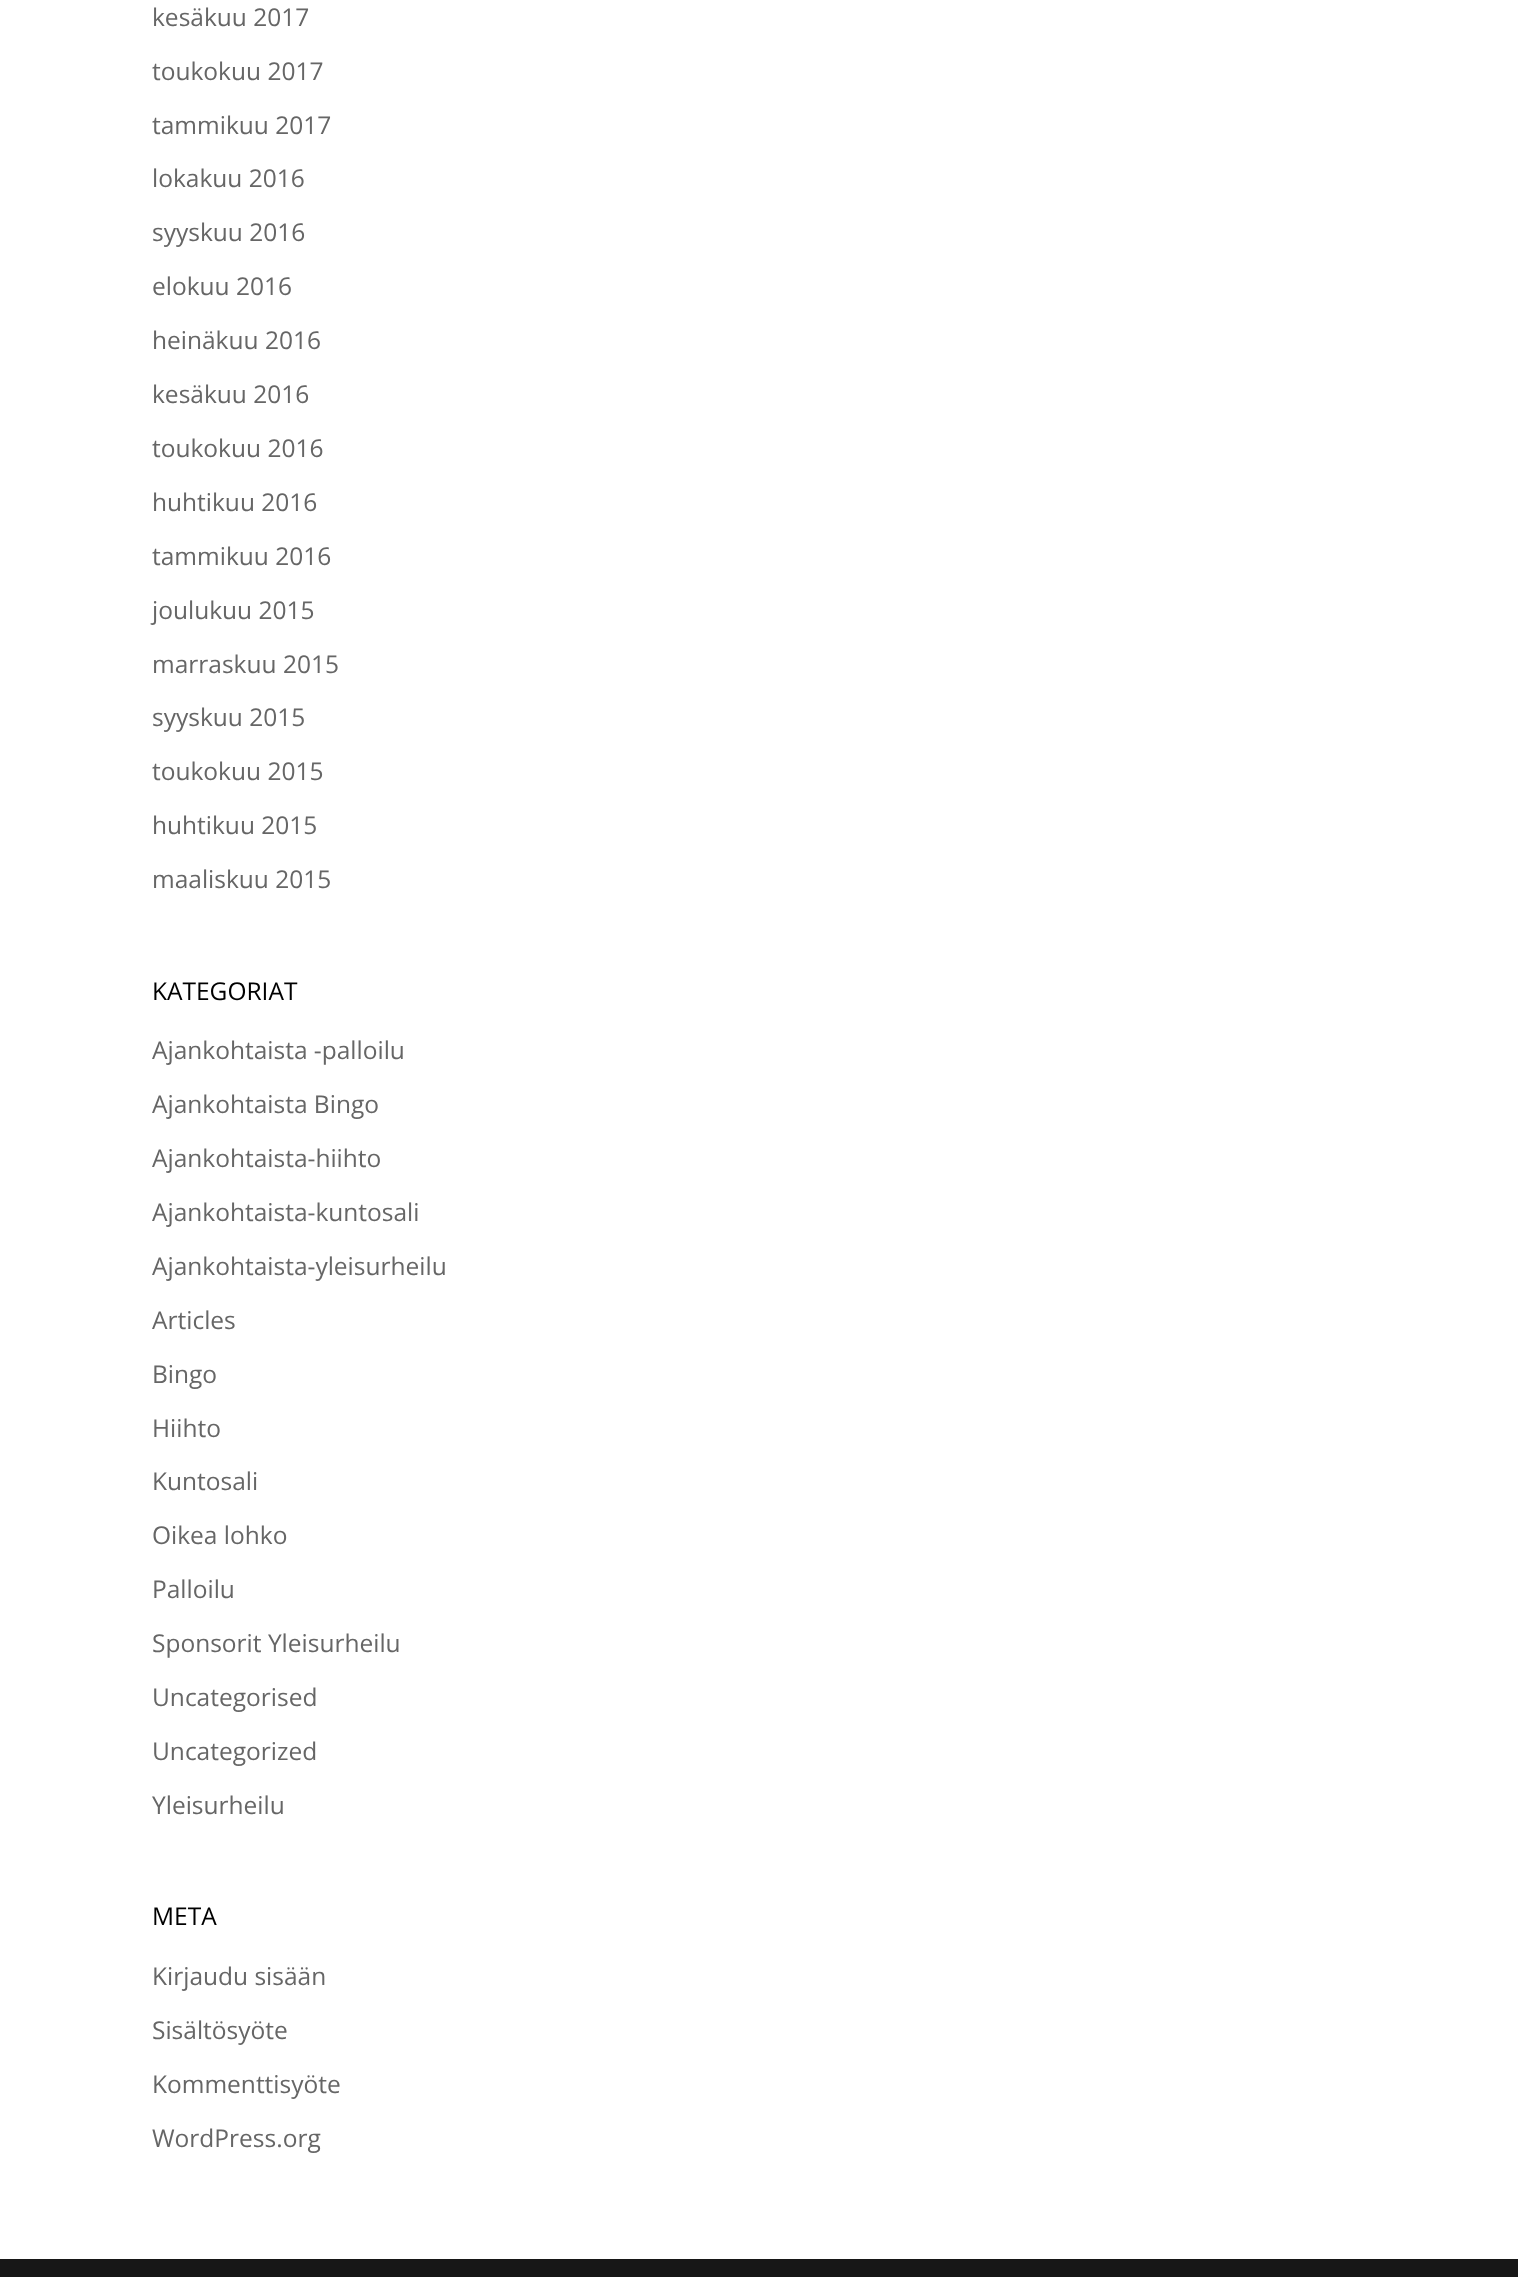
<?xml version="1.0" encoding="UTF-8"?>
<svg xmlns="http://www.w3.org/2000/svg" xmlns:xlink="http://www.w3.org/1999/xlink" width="1518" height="2277">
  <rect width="100%" height="100%" fill="#ffffff" />
  <rect y="2259" width="1518" height="18" fill="#171717" />
  <text x="152" y="26" style="font-family: Open Sans; font-size: 24.5px; fill: #666666">kesäkuu 2017</text>
  <text x="152" y="80" style="font-family: Open Sans; font-size: 24.5px; fill: #666666">toukokuu 2017</text>
  <text x="152" y="134" style="font-family: Open Sans; font-size: 24.5px; fill: #666666">tammikuu 2017</text>
  <text x="152" y="187" style="font-family: Open Sans; font-size: 24.5px; fill: #666666">lokakuu 2016</text>
  <text x="152" y="241" style="font-family: Open Sans; font-size: 24.5px; fill: #666666">syyskuu 2016</text>
  <text x="152" y="295" style="font-family: Open Sans; font-size: 24.5px; fill: #666666">elokuu 2016</text>
  <text x="152" y="349" style="font-family: Open Sans; font-size: 24.5px; fill: #666666">heinäkuu 2016</text>
  <text x="152" y="403" style="font-family: Open Sans; font-size: 24.5px; fill: #666666">kesäkuu 2016</text>
  <text x="152" y="457" style="font-family: Open Sans; font-size: 24.5px; fill: #666666">toukokuu 2016</text>
  <text x="152" y="511" style="font-family: Open Sans; font-size: 24.5px; fill: #666666">huhtikuu 2016</text>
  <text x="152" y="565" style="font-family: Open Sans; font-size: 24.5px; fill: #666666">tammikuu 2016</text>
  <text x="152" y="619" style="font-family: Open Sans; font-size: 24.5px; fill: #666666">joulukuu 2015</text>
  <text x="152" y="673" style="font-family: Open Sans; font-size: 24.5px; fill: #666666">marraskuu 2015</text>
  <text x="152" y="726" style="font-family: Open Sans; font-size: 24.5px; fill: #666666">syyskuu 2015</text>
  <text x="152" y="780" style="font-family: Open Sans; font-size: 24.5px; fill: #666666">toukokuu 2015</text>
  <text x="152" y="834" style="font-family: Open Sans; font-size: 24.5px; fill: #666666">huhtikuu 2015</text>
  <text x="152" y="888" style="font-family: Open Sans; font-size: 24.5px; fill: #666666">maaliskuu 2015</text>
  <text x="152" y="1000" style="font-family: Open Sans; font-size: 24.5px; fill: #000000">KATEGORIAT</text>
  <text x="152" y="1059" style="font-family: Open Sans; font-size: 24.5px; fill: #666666">Ajankohtaista -palloilu</text>
  <text x="152" y="1113" style="font-family: Open Sans; font-size: 24.5px; fill: #666666">Ajankohtaista Bingo</text>
  <text x="152" y="1167" style="font-family: Open Sans; font-size: 24.5px; fill: #666666">Ajankohtaista-hiihto</text>
  <text x="152" y="1221" style="font-family: Open Sans; font-size: 24.5px; fill: #666666">Ajankohtaista-kuntosali</text>
  <text x="152" y="1275" style="font-family: Open Sans; font-size: 24.5px; fill: #666666">Ajankohtaista-yleisurheilu</text>
  <text x="152" y="1329" style="font-family: Open Sans; font-size: 24.5px; fill: #666666">Articles</text>
  <text x="152" y="1383" style="font-family: Open Sans; font-size: 24.5px; fill: #666666">Bingo</text>
  <text x="152" y="1437" style="font-family: Open Sans; font-size: 24.5px; fill: #666666">Hiihto</text>
  <text x="152" y="1490" style="font-family: Open Sans; font-size: 24.5px; fill: #666666">Kuntosali</text>
  <text x="152" y="1544" style="font-family: Open Sans; font-size: 24.5px; fill: #666666">Oikea lohko</text>
  <text x="152" y="1598" style="font-family: Open Sans; font-size: 24.5px; fill: #666666">Palloilu</text>
  <text x="152" y="1652" style="font-family: Open Sans; font-size: 24.5px; fill: #666666">Sponsorit Yleisurheilu</text>
  <text x="152" y="1706" style="font-family: Open Sans; font-size: 24.5px; fill: #666666">Uncategorised</text>
  <text x="152" y="1760" style="font-family: Open Sans; font-size: 24.5px; fill: #666666">Uncategorized</text>
  <text x="152" y="1814" style="font-family: Open Sans; font-size: 24.5px; fill: #666666">Yleisurheilu</text>
  <text x="152" y="1925" style="font-family: Open Sans; font-size: 24.5px; fill: #000000">META</text>
  <text x="152" y="1985" style="font-family: Open Sans; font-size: 24.5px; fill: #666666">Kirjaudu sisään</text>
  <text x="152" y="2039" style="font-family: Open Sans; font-size: 24.5px; fill: #666666">Sisältösyöte</text>
  <text x="152" y="2093" style="font-family: Open Sans; font-size: 24.5px; fill: #666666">Kommenttisyöte</text>
  <text x="152" y="2147" style="font-family: Open Sans; font-size: 24.5px; fill: #666666">WordPress.org</text>
</svg>
